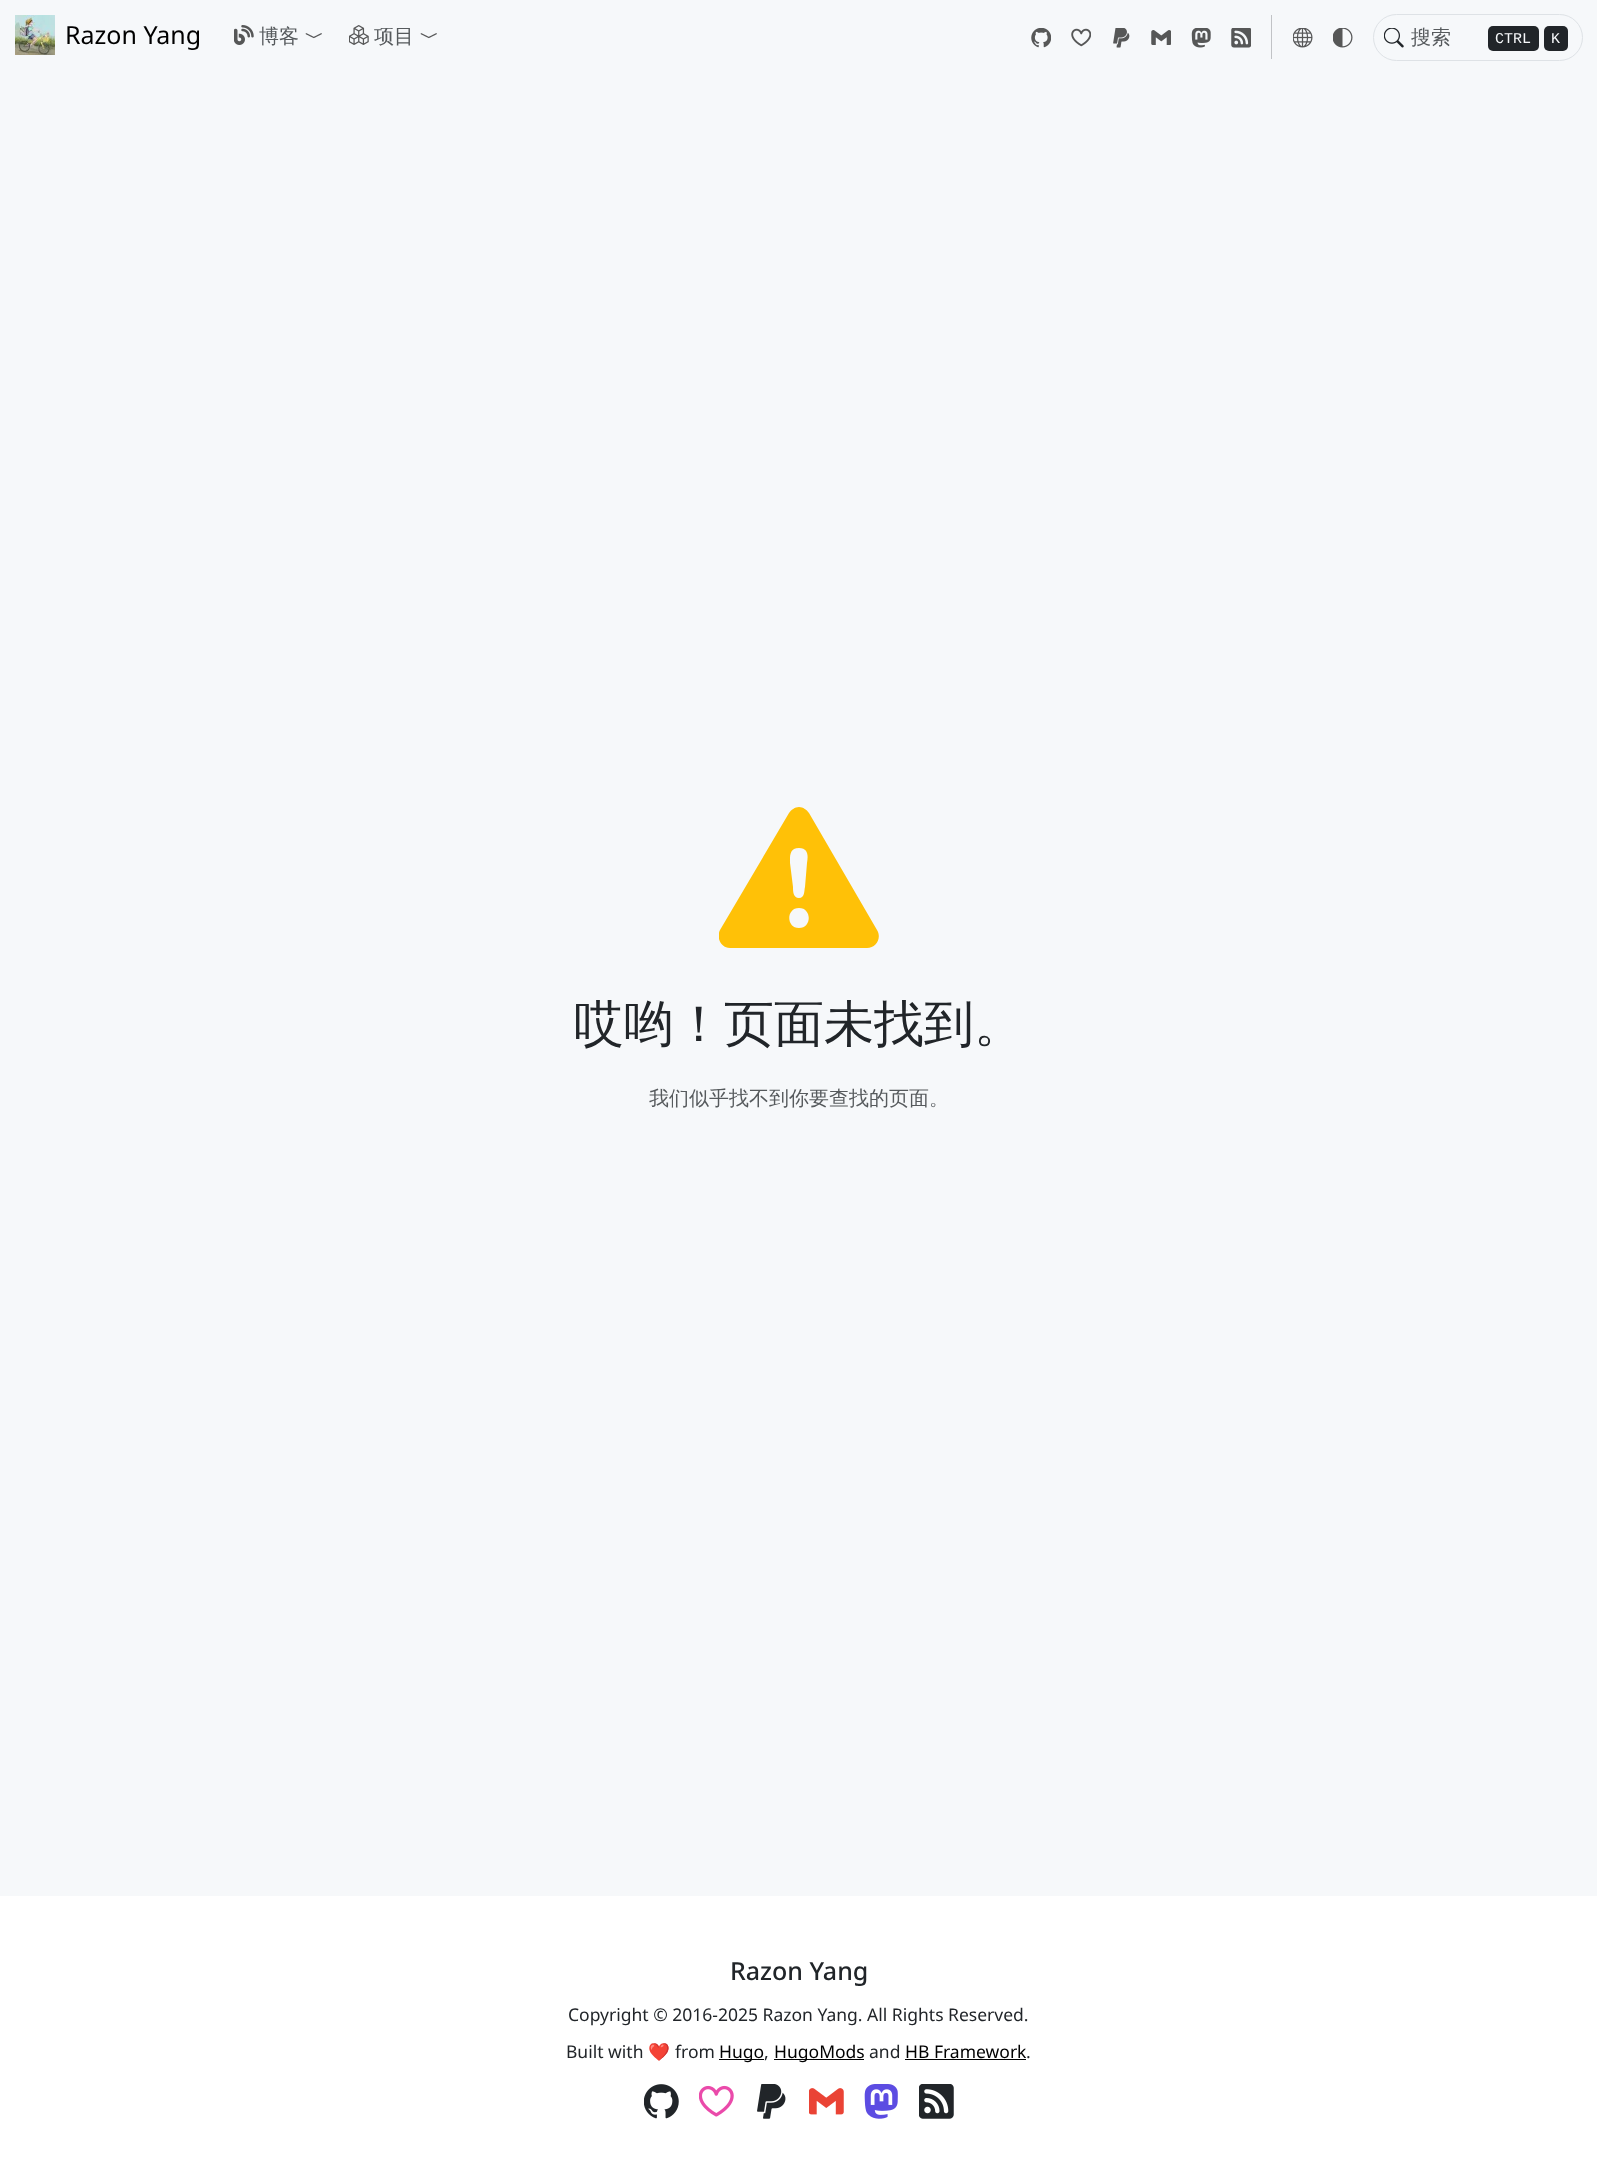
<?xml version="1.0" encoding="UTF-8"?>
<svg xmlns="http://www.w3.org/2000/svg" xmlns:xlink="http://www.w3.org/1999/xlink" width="1597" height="2173">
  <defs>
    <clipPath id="clip1"><rect x="719" y="798" width="160" height="160" /></clipPath>
  </defs>
  <rect width="100%" height="100%" fill="#f6f8fa" />
  <image x="15" y="15" width="40" height="40" xlink:href="image1.png" />
  <image x="234" y="25" width="20" height="20" xlink:href="image2.png" />
  <image x="305" y="33" width="17" height="6" xlink:href="image3.png" />
  <image x="349" y="25" width="20" height="20" xlink:href="image4.png" />
  <image x="420" y="33" width="17" height="6" xlink:href="image3.png" />
  <image x="1031" y="28" width="20" height="20" xlink:href="image5.png" />
  <image x="1071" y="28" width="20" height="19" xlink:href="image6.png" />
  <image x="1113" y="28" width="17" height="20" xlink:href="image7.png" />
  <image x="1151" y="30" width="20" height="15" xlink:href="image8.png" />
  <image x="1191" y="28" width="20" height="20" xlink:href="image9.png" />
  <image x="1231" y="28" width="20" height="20" xlink:href="image10.png" />
  <rect x="1271" y="15" width="1" height="44" fill="#c1c3c6" />
  <image x="1293" y="28" width="20" height="20" xlink:href="image11.png" />
  <image x="1333" y="28" width="20" height="20" xlink:href="image12.png" />
  <rect x="1373.5" y="14.5" width="209" height="46" rx="23" fill="none" stroke="#dee2e6" />
  <image x="1384" y="28" width="20" height="20" xlink:href="image13.png" />
  <rect x="1488" y="26" width="51" height="25" rx="5" fill="#212529" />
  <rect x="1544" y="26" width="24" height="25" rx="5" fill="#212529" />
  <g clip-path="url(#clip1)">
    <path d="M 809 813 c -2 -3 -6 -6 -10 -6 c -4 0 -8 3 -10 6 l -69 117 c -4 8 1 18 10 18 h 137 c 9 0 15 -10 10 -18 z m -10 35 c 10 0 9 9 8 15 l -2 24 c -1 4 0 11 -6 11 c -6 0 -6 -7 -6 -11 l -3 -24 c 0 -6 -1 -15 9 -15 m 0 60 c 13 0 13 20 0 20 c -13 0 -13 -20 0 -20" fill="#ffc107" />
  </g>
  <rect y="1896" width="1597" height="277" fill="#ffffff" />
  <rect x="719" y="2059" width="45" height="1" fill="#000000" />
  <rect x="774" y="2059" width="90" height="1" fill="#000000" />
  <rect x="905" y="2059" width="121" height="1" fill="#000000" />
  <image x="644" y="2084" width="35" height="35" xlink:href="image14.png" />
  <image x="699" y="2085" width="35" height="32" xlink:href="image15.png" />
  <image x="757" y="2084" width="29" height="35" xlink:href="image16.png" />
  <image x="809" y="2088" width="35" height="27" xlink:href="image17.png" />
  <image x="864" y="2084" width="34" height="35" xlink:href="image18.png" />
  <image x="919" y="2084" width="35" height="35" xlink:href="image19.png" />
  <text x="65" y="44" style="font-family: Noto Sans; font-size: 25px; fill: #000000">Razon Yang</text>
  <text x="259" y="43" style="font-family: WenQuanYi Zen Hei; font-size: 20px; font-weight: 500; fill: #565a5d">博客</text>
  <text x="374" y="43" style="font-family: WenQuanYi Zen Hei; font-size: 20px; font-weight: 500; fill: #565a5d">项目</text>
  <text x="1411" y="44" style="font-family: WenQuanYi Zen Hei; font-size: 20px; font-weight: 500; fill: #565a5d">搜索</text>
  <text x="1495" y="43" style="font-family: Liberation Mono; font-size: 15px; fill: #f6f8fa">CTRL</text>
  <text x="1551" y="43" style="font-family: Liberation Mono; font-size: 15px; fill: #f6f8fa">K</text>
  <text x="574" y="1041" style="font-family: WenQuanYi Zen Hei; font-size: 50px; font-weight: 500; fill: #212529">哎哟！页面未找到。</text>
  <text x="649" y="1105" style="font-family: WenQuanYi Zen Hei; font-size: 20px; font-weight: 500; fill: #565a5d">我们似乎找不到你要查找的页面。</text>
  <text x="730" y="1980" style="font-family: Noto Sans; font-size: 25px; font-weight: 500; fill: #212529">Razon Yang</text>
  <text x="568" y="2021" style="font-family: Noto Sans; font-size: 17.5px; fill: #212529">Copyright © 2016-2025 Razon Yang. All Rights Reserved.</text>
  <text x="566" y="2058" style="font-family: Noto Sans; font-size: 17.5px; fill: #212529">Built with</text>
  <text x="648" y="2058" style="font-family: Noto Color Emoji; font-size: 17.5px; fill: #212529">❤️</text>
  <text x="675" y="2058" style="font-family: Noto Sans; font-size: 17.5px; fill: #212529">from</text>
  <text x="719" y="2058" style="font-family: Noto Sans; font-size: 17.5px; fill: #000000">Hugo</text>
  <text x="764" y="2058" style="font-family: Noto Sans; font-size: 17.5px; fill: #212529">,</text>
  <text x="774" y="2058" style="font-family: Noto Sans; font-size: 17.5px; fill: #000000">HugoMods</text>
  <text x="869" y="2058" style="font-family: Noto Sans; font-size: 17.5px; fill: #212529">and</text>
  <text x="905" y="2058" style="font-family: Noto Sans; font-size: 17.5px; fill: #000000">HB Framework</text>
  <text x="1026" y="2058" style="font-family: Noto Sans; font-size: 17.5px; fill: #212529">.</text>
</svg>
